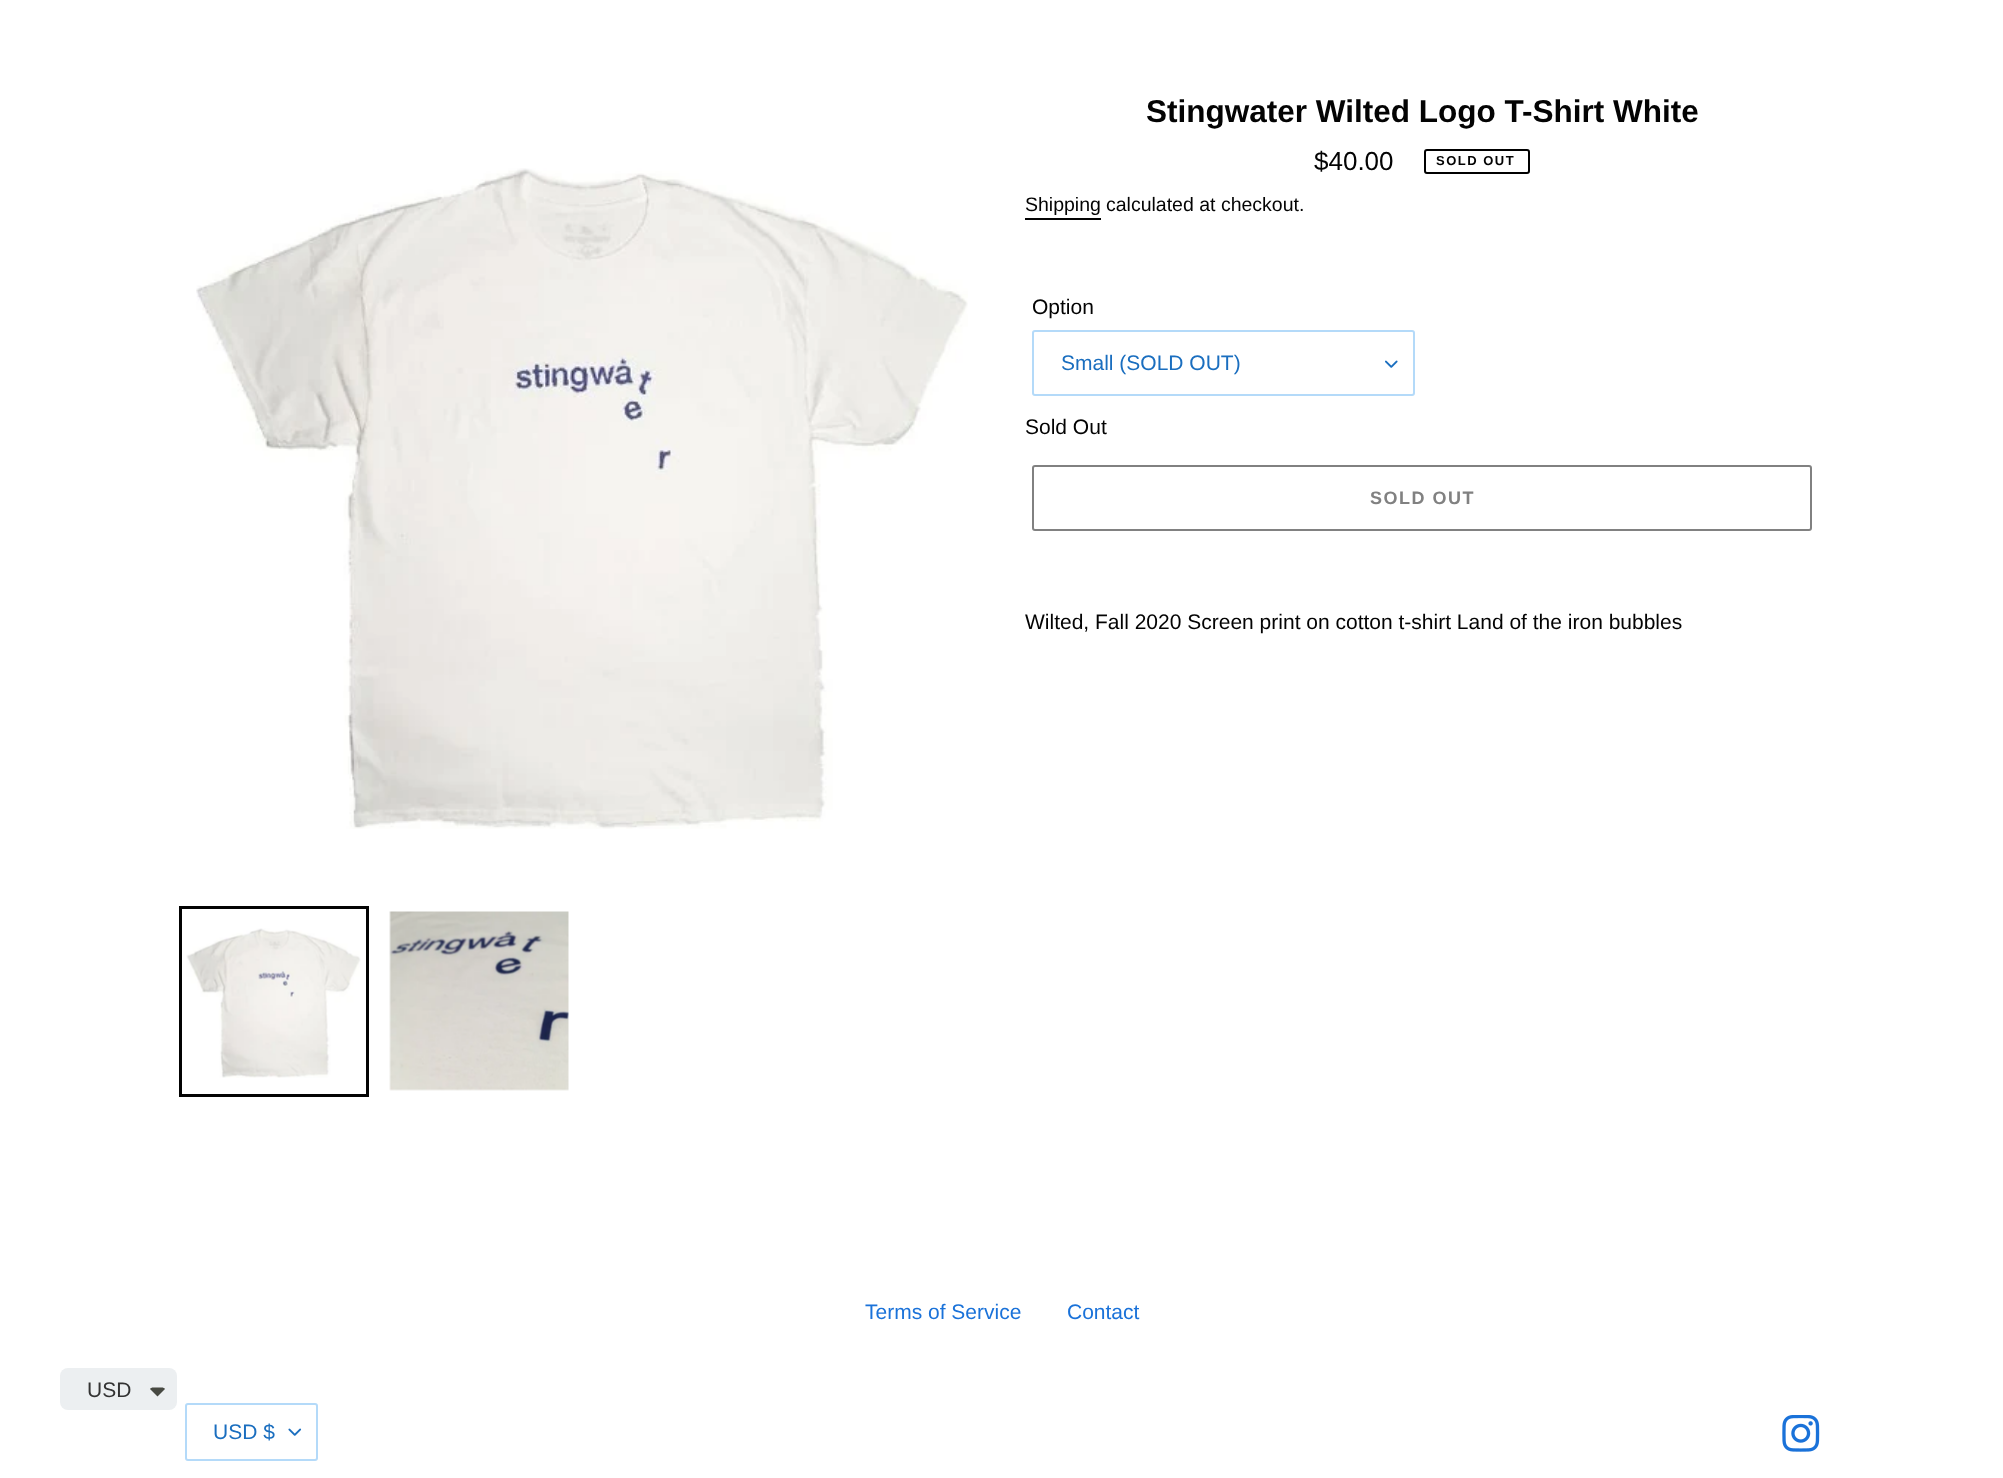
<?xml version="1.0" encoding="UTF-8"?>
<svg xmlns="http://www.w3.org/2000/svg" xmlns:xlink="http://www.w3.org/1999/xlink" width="2003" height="1478">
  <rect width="100%" height="100%" fill="#ffffff" />
  <rect x="60" y="1368" width="117" height="42" rx="8" fill="#eceff1" />
  <path d="M 153 1387.5 c -1 0 -2.5 0.5 -3 1.5 l 7.5 7.5 l 7.5 -7.5 c -0.5 -1 -2 -1.5 -3 -1.5 z" fill="#474942" />
  <image x="196" y="168" width="772" height="661" xlink:href="image1.png" />
  <rect x="180.5" y="907.5" width="187" height="188" fill="none" stroke="#030303" stroke-width="3" />
  <image x="186" y="928" width="175" height="150" xlink:href="image2.png" />
  <image x="389" y="911" width="180" height="180" xlink:href="image3.png" />
  <rect x="1425" y="150" width="104" height="23" rx="2" fill="none" stroke="#000000" stroke-width="2" />
  <rect x="1025" y="218" width="76" height="2" fill="#030303" />
  <image x="1385" y="360" width="13" height="8" xlink:href="image4.png" />
  <rect x="1033" y="331" width="381" height="64" rx="2" fill="none" stroke="#b4daf9" stroke-width="2" />
  <rect x="1033" y="466" width="778" height="64" rx="2" fill="none" stroke="#818181" stroke-width="2" />
  <image x="288" y="1428" width="14" height="8" xlink:href="image5.png" />
  <rect x="186" y="1404" width="131" height="56" rx="2" fill="none" stroke="#b4daf9" stroke-width="2" />
  <image x="1782" y="1415" width="38" height="37" xlink:href="image6.png" />
  <text x="87" y="1397" style="font-family: Liberation Sans; font-size: 21px; fill: #333333">USD</text>
  <text x="1146" y="122" style="font-family: Liberation Sans; font-size: 31.5px; font-weight: bold; fill: #030303">Stingwater Wilted Logo T-Shirt White</text>
  <text x="1314" y="170" style="font-family: Liberation Sans; font-size: 26px; fill: #030303">$40.00</text>
  <text x="1436" y="165" style="font-family: Liberation Sans; font-size: 13px; font-weight: bold; letter-spacing: 1.5px; fill: #030303">SOLD OUT</text>
  <text x="1025" y="211" style="font-family: Liberation Sans; font-size: 19.5px; fill: #030303">Shipping</text>
  <text x="1106" y="211" style="font-family: Liberation Sans; font-size: 19.5px; fill: #030303">calculated at checkout.</text>
  <text x="1032" y="314" style="font-family: Liberation Sans; font-size: 21px; fill: #030303">Option</text>
  <text x="1061" y="370" style="font-family: Liberation Sans; font-size: 21px; fill: #1a6ebf">Small (SOLD OUT)</text>
  <text x="1025" y="434" style="font-family: Liberation Sans; font-size: 21px; fill: #030303">Sold Out</text>
  <text x="1370" y="504" style="font-family: Liberation Sans; font-size: 18px; font-weight: bold; letter-spacing: 1.5px; fill: #818181">SOLD OUT</text>
  <text x="1025" y="629" style="font-family: Liberation Sans; font-size: 21px; fill: #030303">Wilted, Fall 2020 Screen print on cotton t-shirt Land of the iron bubbles</text>
  <text x="865" y="1319" style="font-family: Liberation Sans; font-size: 21px; fill: #1a72d9">Terms of Service</text>
  <text x="1067" y="1319" style="font-family: Liberation Sans; font-size: 21px; fill: #1a72d9">Contact</text>
  <text x="213" y="1439" style="font-family: Liberation Sans; font-size: 21px; fill: #1a6ebf">USD $</text>
</svg>
